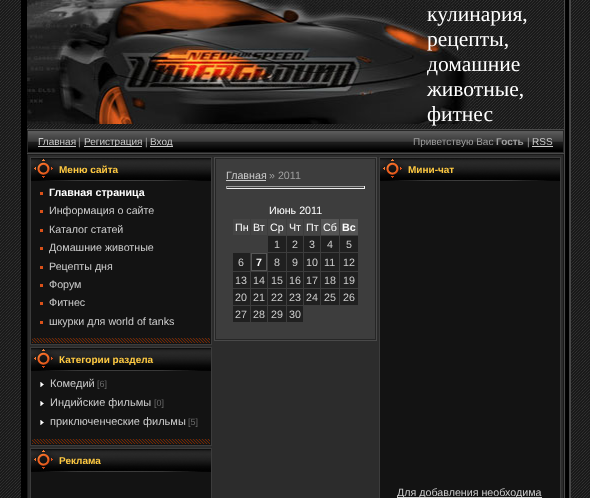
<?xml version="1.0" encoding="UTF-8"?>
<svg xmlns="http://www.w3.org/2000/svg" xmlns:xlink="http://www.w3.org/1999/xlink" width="590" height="498">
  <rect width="100%" height="100%" fill="#ffffff" />
  <image x="0" y="0" width="590" height="498" xlink:href="image1.png" />
  <rect x="21" width="6" height="498" fill="#000000" />
  <rect x="27" y="129" width="537" height="1" fill="#494949" />
  <image x="27" y="0" width="450" height="124" xlink:href="image2.png" />
  <image x="28" y="131" width="535" height="21" xlink:href="image3.png" />
  <rect x="27.5" y="130.5" width="536" height="22" fill="none" stroke="#262626" />
  <rect x="38" y="146" width="38" height="1" fill="#cccccc" />
  <rect x="84" y="146" width="58" height="1" fill="#cccccc" />
  <rect x="150" y="146" width="23" height="1" fill="#cccccc" />
  <rect x="532" y="146" width="21" height="1" fill="#cccccc" />
  <rect x="27" y="153" width="537" height="1" fill="#494949" />
  <rect x="27.5" y="154.5" width="536" height="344" fill="#2c2c2c" stroke="#1a1a1a" />
  <rect x="30.5" y="157.5" width="181" height="187" fill="none" stroke="#3c3c3c" />
  <image x="31" y="158" width="180" height="23" xlink:href="image4.png" />
  <rect x="31" y="181" width="180" height="157" fill="#131313" />
  <rect x="40" y="192" width="3" height="3" fill="#da5119" />
  <rect x="40" y="210" width="3" height="3" fill="#da5119" />
  <rect x="40" y="229" width="3" height="3" fill="#da5119" />
  <rect x="40" y="247" width="3" height="3" fill="#da5119" />
  <rect x="40" y="266" width="3" height="3" fill="#da5119" />
  <rect x="40" y="284" width="3" height="3" fill="#da5119" />
  <rect x="40" y="302" width="3" height="3" fill="#da5119" />
  <rect x="40" y="321" width="3" height="3" fill="#da5119" />
  <image x="31" y="338" width="180" height="6" xlink:href="image5.png" />
  <rect x="30.5" y="347.5" width="181" height="98" fill="none" stroke="#3c3c3c" />
  <image x="31" y="348" width="180" height="23" xlink:href="image4.png" />
  <rect x="31" y="371" width="180" height="68" fill="#131313" />
  <image x="40" y="382" width="4" height="5" xlink:href="image6.png" />
  <image x="40" y="401" width="4" height="5" xlink:href="image6.png" />
  <image x="40" y="420" width="4" height="5" xlink:href="image6.png" />
  <image x="31" y="439" width="180" height="6" xlink:href="image5.png" />
  <rect x="30.5" y="448.5" width="181" height="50" fill="none" stroke="#3c3c3c" />
  <image x="31" y="449" width="180" height="23" xlink:href="image4.png" />
  <rect x="31" y="472" width="180" height="26" fill="#131313" />
  <rect x="214.5" y="157.5" width="162" height="183" fill="none" stroke="#494949" />
  <rect x="215.5" y="158.5" width="160" height="181" fill="#3d3d3d" stroke="#262626" />
  <rect x="226" y="180" width="40" height="1" fill="#cccccc" />
  <rect x="226" y="186" width="139" height="1" fill="#9f9f9f" />
  <rect x="364" y="186" width="1" height="3" fill="#eeeeee" />
  <rect x="226" y="188" width="139" height="1" fill="#eeeeee" />
  <rect x="226" y="186" width="1" height="3" fill="#9f9f9f" />
  <rect x="233" y="219" width="17" height="16" fill="#444444" />
  <rect x="251" y="219" width="16" height="16" fill="#444444" />
  <rect x="268" y="219" width="18" height="16" fill="#444444" />
  <rect x="287" y="219" width="16" height="16" fill="#444444" />
  <rect x="304" y="219" width="16" height="16" fill="#444444" />
  <rect x="321" y="219" width="18" height="16" fill="#555555" />
  <rect x="340" y="219" width="18" height="16" fill="#555555" />
  <rect x="268" y="236" width="18" height="16" fill="#202020" />
  <rect x="287" y="236" width="16" height="16" fill="#202020" />
  <rect x="304" y="236" width="16" height="16" fill="#202020" />
  <rect x="321" y="236" width="18" height="16" fill="#202020" />
  <rect x="340" y="236" width="18" height="16" fill="#202020" />
  <rect x="233" y="253" width="17" height="18" fill="#202020" />
  <rect x="251.5" y="253.5" width="15" height="17" fill="#222222" stroke="#555555" />
  <rect x="268" y="253" width="18" height="18" fill="#202020" />
  <rect x="287" y="253" width="16" height="18" fill="#202020" />
  <rect x="304" y="253" width="16" height="18" fill="#202020" />
  <rect x="321" y="253" width="18" height="18" fill="#202020" />
  <rect x="340" y="253" width="18" height="18" fill="#202020" />
  <rect x="233" y="272" width="17" height="16" fill="#202020" />
  <rect x="251" y="272" width="16" height="16" fill="#202020" />
  <rect x="268" y="272" width="18" height="16" fill="#202020" />
  <rect x="287" y="272" width="16" height="16" fill="#202020" />
  <rect x="304" y="272" width="16" height="16" fill="#202020" />
  <rect x="321" y="272" width="18" height="16" fill="#202020" />
  <rect x="340" y="272" width="18" height="16" fill="#202020" />
  <rect x="233" y="289" width="17" height="16" fill="#202020" />
  <rect x="251" y="289" width="16" height="16" fill="#202020" />
  <rect x="268" y="289" width="18" height="16" fill="#202020" />
  <rect x="287" y="289" width="16" height="16" fill="#202020" />
  <rect x="304" y="289" width="16" height="16" fill="#202020" />
  <rect x="321" y="289" width="18" height="16" fill="#202020" />
  <rect x="340" y="289" width="18" height="16" fill="#202020" />
  <rect x="233" y="306" width="17" height="16" fill="#202020" />
  <rect x="251" y="306" width="16" height="16" fill="#202020" />
  <rect x="268" y="306" width="18" height="16" fill="#202020" />
  <rect x="287" y="306" width="16" height="16" fill="#202020" />
  <rect x="379.5" y="157.5" width="181" height="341" fill="none" stroke="#3c3c3c" />
  <image x="380" y="158" width="180" height="23" xlink:href="image4.png" />
  <rect x="380" y="181" width="180" height="317" fill="#131313" />
  <rect x="397" y="497" width="145" height="1" fill="#cccccc" />
  <image x="564" y="0" width="7" height="498" xlink:href="image7.png" />
  <text x="427" y="21" style="font-family: Liberation Serif; font-size: 21.5px; fill: #ffffff">кулинария,</text>
  <text x="427" y="46" style="font-family: Liberation Serif; font-size: 21.5px; fill: #ffffff">рецепты,</text>
  <text x="427" y="71" style="font-family: Liberation Serif; font-size: 21.5px; fill: #ffffff">домашние</text>
  <text x="427" y="96" style="font-family: Liberation Serif; font-size: 21.5px; fill: #ffffff">животные,</text>
  <text x="427" y="121" style="font-family: Liberation Serif; font-size: 21.5px; fill: #ffffff">фитнес</text>
  <text x="38" y="145" style="font-family: Liberation Sans; font-size: 10px; fill: #cccccc">Главная</text>
  <text x="78" y="145" style="font-family: Liberation Sans; font-size: 10px; fill: #9f9f9f">|</text>
  <text x="84" y="145" style="font-family: Liberation Sans; font-size: 10px; fill: #cccccc">Регистрация</text>
  <text x="145" y="145" style="font-family: Liberation Sans; font-size: 10px; fill: #9f9f9f">|</text>
  <text x="150" y="145" style="font-family: Liberation Sans; font-size: 10px; fill: #cccccc">Вход</text>
  <text x="413" y="145" style="font-family: Liberation Sans; font-size: 10px; fill: #9f9f9f">Приветствую Вас</text>
  <text x="496" y="145" style="font-family: Liberation Sans; font-size: 10px; font-weight: bold; fill: #9f9f9f">Гость</text>
  <text x="527" y="145" style="font-family: Liberation Sans; font-size: 10px; fill: #9f9f9f">|</text>
  <text x="532" y="145" style="font-family: Liberation Sans; font-size: 10px; fill: #cccccc">RSS</text>
  <text x="59" y="173" style="font-family: Liberation Sans; font-size: 10px; font-weight: bold; fill: #ffca42">Меню сайта</text>
  <text x="49" y="196" style="font-family: Liberation Sans; font-size: 10.7px; font-weight: bold; fill: #ffffff">Главная страница</text>
  <text x="49" y="214" style="font-family: Liberation Sans; font-size: 10.7px; fill: #cccccc">Информация о сайте</text>
  <text x="49" y="233" style="font-family: Liberation Sans; font-size: 10.7px; fill: #cccccc">Каталог статей</text>
  <text x="49" y="251" style="font-family: Liberation Sans; font-size: 10.7px; fill: #cccccc">Домашние животные</text>
  <text x="49" y="270" style="font-family: Liberation Sans; font-size: 10.7px; fill: #cccccc">Рецепты дня</text>
  <text x="49" y="288" style="font-family: Liberation Sans; font-size: 10.7px; fill: #cccccc">Форум</text>
  <text x="49" y="306" style="font-family: Liberation Sans; font-size: 10.7px; fill: #cccccc">Фитнес</text>
  <text x="49" y="325" style="font-family: Liberation Sans; font-size: 10.7px; fill: #cccccc">шкурки для world of tanks</text>
  <text x="59" y="363" style="font-family: Liberation Sans; font-size: 10px; font-weight: bold; fill: #ffca42">Категории раздела</text>
  <text x="50" y="387" style="font-family: Liberation Sans; font-size: 11px; fill: #cccccc">Комедий</text>
  <text x="97" y="387" style="font-family: Liberation Sans; font-size: 9px; fill: #696969">[6]</text>
  <text x="50" y="406" style="font-family: Liberation Sans; font-size: 11px; fill: #cccccc">Индийские фильмы</text>
  <text x="154" y="406" style="font-family: Liberation Sans; font-size: 9px; fill: #696969">[0]</text>
  <text x="50" y="425" style="font-family: Liberation Sans; font-size: 11px; fill: #cccccc">приключенческие фильмы</text>
  <text x="188" y="425" style="font-family: Liberation Sans; font-size: 9px; fill: #696969">[5]</text>
  <text x="59" y="464" style="font-family: Liberation Sans; font-size: 10px; font-weight: bold; fill: #ffca42">Реклама</text>
  <text x="226" y="179" style="font-family: Liberation Sans; font-size: 10.7px; fill: #cccccc">Главная</text>
  <text x="269" y="179" style="font-family: Liberation Sans; font-size: 10.7px; fill: #9f9f9f">» 2011</text>
  <text x="269" y="214" style="font-family: Liberation Sans; font-size: 10.7px; fill: #ffffff">Июнь 2011</text>
  <text x="235" y="231" style="font-family: Liberation Sans; font-size: 10.7px; fill: #ffffff">Пн</text>
  <text x="253" y="231" style="font-family: Liberation Sans; font-size: 10.7px; fill: #ffffff">Вт</text>
  <text x="270" y="231" style="font-family: Liberation Sans; font-size: 10.7px; fill: #ffffff">Ср</text>
  <text x="289" y="231" style="font-family: Liberation Sans; font-size: 10.7px; fill: #ffffff">Чт</text>
  <text x="306" y="231" style="font-family: Liberation Sans; font-size: 10.7px; fill: #ffffff">Пт</text>
  <text x="323" y="231" style="font-family: Liberation Sans; font-size: 10.7px; fill: #ffffff">Сб</text>
  <text x="342" y="231" style="font-family: Liberation Sans; font-size: 10.7px; font-weight: bold; fill: #ffffff">Вс</text>
  <text x="274" y="248" style="font-family: Liberation Sans; font-size: 10.7px; fill: #cccccc">1</text>
  <text x="292" y="248" style="font-family: Liberation Sans; font-size: 10.7px; fill: #cccccc">2</text>
  <text x="309" y="248" style="font-family: Liberation Sans; font-size: 10.7px; fill: #cccccc">3</text>
  <text x="327" y="248" style="font-family: Liberation Sans; font-size: 10.7px; fill: #cccccc">4</text>
  <text x="346" y="248" style="font-family: Liberation Sans; font-size: 10.7px; fill: #cccccc">5</text>
  <text x="238" y="266" style="font-family: Liberation Sans; font-size: 10.7px; fill: #cccccc">6</text>
  <text x="256" y="266" style="font-family: Liberation Sans; font-size: 10.7px; font-weight: bold; fill: #ffffff">7</text>
  <text x="274" y="266" style="font-family: Liberation Sans; font-size: 10.7px; fill: #cccccc">8</text>
  <text x="292" y="266" style="font-family: Liberation Sans; font-size: 10.7px; fill: #cccccc">9</text>
  <text x="306" y="266" style="font-family: Liberation Sans; font-size: 10.7px; fill: #cccccc">10</text>
  <text x="324" y="266" style="font-family: Liberation Sans; font-size: 10.7px; fill: #cccccc">11</text>
  <text x="343" y="266" style="font-family: Liberation Sans; font-size: 10.7px; fill: #cccccc">12</text>
  <text x="235" y="284" style="font-family: Liberation Sans; font-size: 10.7px; fill: #cccccc">13</text>
  <text x="253" y="284" style="font-family: Liberation Sans; font-size: 10.7px; fill: #cccccc">14</text>
  <text x="271" y="284" style="font-family: Liberation Sans; font-size: 10.7px; fill: #cccccc">15</text>
  <text x="289" y="284" style="font-family: Liberation Sans; font-size: 10.7px; fill: #cccccc">16</text>
  <text x="306" y="284" style="font-family: Liberation Sans; font-size: 10.7px; fill: #cccccc">17</text>
  <text x="324" y="284" style="font-family: Liberation Sans; font-size: 10.7px; fill: #cccccc">18</text>
  <text x="343" y="284" style="font-family: Liberation Sans; font-size: 10.7px; fill: #cccccc">19</text>
  <text x="235" y="301" style="font-family: Liberation Sans; font-size: 10.7px; fill: #cccccc">20</text>
  <text x="253" y="301" style="font-family: Liberation Sans; font-size: 10.7px; fill: #cccccc">21</text>
  <text x="271" y="301" style="font-family: Liberation Sans; font-size: 10.7px; fill: #cccccc">22</text>
  <text x="289" y="301" style="font-family: Liberation Sans; font-size: 10.7px; fill: #cccccc">23</text>
  <text x="306" y="301" style="font-family: Liberation Sans; font-size: 10.7px; fill: #cccccc">24</text>
  <text x="324" y="301" style="font-family: Liberation Sans; font-size: 10.7px; fill: #cccccc">25</text>
  <text x="343" y="301" style="font-family: Liberation Sans; font-size: 10.7px; fill: #cccccc">26</text>
  <text x="235" y="318" style="font-family: Liberation Sans; font-size: 10.7px; fill: #cccccc">27</text>
  <text x="253" y="318" style="font-family: Liberation Sans; font-size: 10.7px; fill: #cccccc">28</text>
  <text x="271" y="318" style="font-family: Liberation Sans; font-size: 10.7px; fill: #cccccc">29</text>
  <text x="289" y="318" style="font-family: Liberation Sans; font-size: 10.7px; fill: #cccccc">30</text>
  <text x="408" y="173" style="font-family: Liberation Sans; font-size: 10px; font-weight: bold; fill: #ffca42">Мини-чат</text>
  <text x="397" y="496" style="font-family: Liberation Sans; font-size: 10.7px; fill: #cccccc">Для добавления необходима</text>
</svg>
